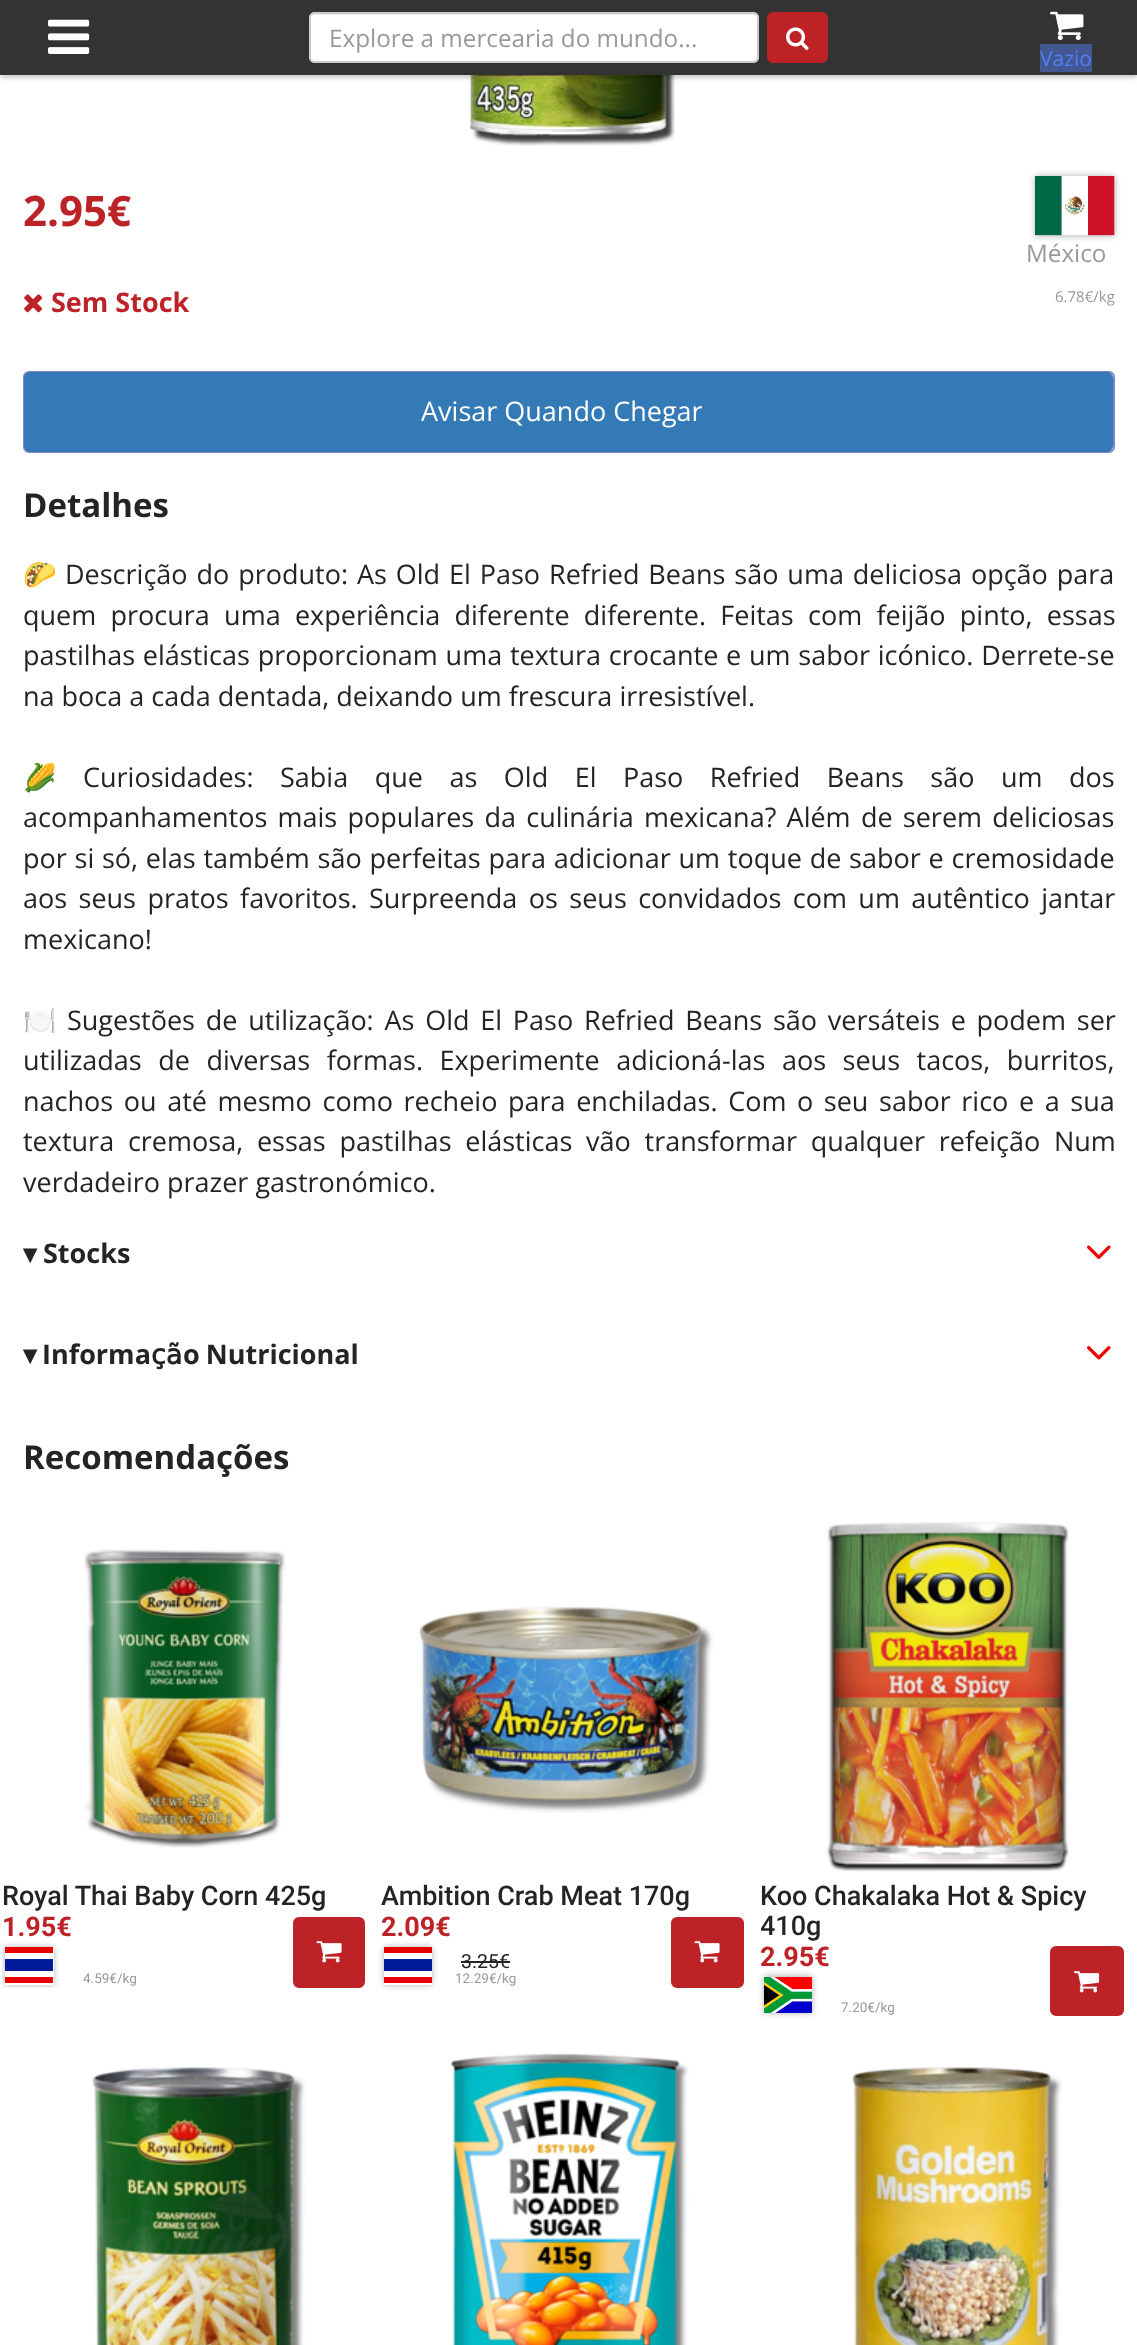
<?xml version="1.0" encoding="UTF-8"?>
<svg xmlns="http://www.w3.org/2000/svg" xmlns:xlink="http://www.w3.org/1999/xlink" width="1137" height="2345">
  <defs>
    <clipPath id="clip1"><rect x="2" y="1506" width="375" height="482" /></clipPath>
    <clipPath id="clip2"><path d="M 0 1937 h 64 v 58 h -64 z m 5 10 h 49 v 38 h -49 z" clip-rule="evenodd" /></clipPath>
    <clipPath id="clip3"><rect x="5" y="1947" width="49" height="36" /></clipPath>
    <clipPath id="clip4"><path d="M 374 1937 h 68 v 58 h -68 z m 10 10 h 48 v 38 h -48 z" clip-rule="evenodd" /></clipPath>
    <clipPath id="clip5"><rect x="384" y="1947" width="48" height="36" /></clipPath>
    <clipPath id="clip6"><rect x="761" y="1506" width="375" height="510" /></clipPath>
  </defs>
  <rect width="100%" height="100%" fill="#ffffff" />
  <image x="467" y="75" width="208" height="71" xlink:href="image4.png" />
  <rect y="3" width="1137" height="75" fill="#000000" fill-opacity="0.2" filter="blur(2px)" />
  <rect width="1137" height="75" fill="#333333" />
  <image x="48" y="19" width="42" height="35" xlink:href="image1.png" />
  <rect x="309" y="12" width="450" height="51" rx="6" fill="#ffffff" />
  <path d="M 315 15 h 438 c 2 0 5 2 5 5 v -1 c 0 -3 -2 -5 -5 -5 h -437 c -2 0 -3 1 -4 2 z" fill="#ececec" />
  <rect x="310" y="13" width="448" height="49" rx="5" fill="none" stroke="#cccccc" stroke-width="2" />
  <rect x="768" y="13" width="59" height="49" rx="5" fill="#bc2226" stroke="#bc2226" stroke-width="2" />
  <image x="786" y="27" width="23" height="23" xlink:href="image2.png" />
  <image x="1050" y="11" width="34" height="30" xlink:href="image3.png" />
  <rect x="1040" y="44" width="52" height="28" fill="#435893" />
  <rect x="1035" y="176" width="80" height="60" fill="#000000" fill-opacity="0.3" filter="blur(3px)" />
  <image x="1035" y="176" width="80" height="60" xlink:href="image5.png" />
  <image x="24" y="294" width="18" height="19" xlink:href="image6.png" />
  <rect x="24" y="372" width="1090" height="80" rx="5" fill="#e9efff" stroke="#7d86c7" stroke-width="2" />
  <rect x="24" y="372" width="1089" height="80" rx="6" fill="#337ab7" />
  <image x="1087" y="1245" width="24" height="14" xlink:href="image7.png" />
  <image x="1087" y="1346" width="24" height="14" xlink:href="image8.png" />
  <image x="84" y="1549" width="202" height="299" xlink:href="image9.png" />
  <g clip-path="url(#clip1)">
    <g clip-path="url(#clip2)">
      <rect x="5" y="1947" width="49" height="38" fill="#000000" fill-opacity="0.3" filter="blur(3px)" />
    </g>
  </g>
  <rect x="5" y="1959" width="48" height="12" fill="#001b9a" />
  <g clip-path="url(#clip3)">
    <path d="M 4 1947 h 49 v 6 h -49 z m 0 30 h 49 v 6 h -49 z" fill="#e70000" fill-rule="evenodd" />
  </g>
  <rect x="294" y="1918" width="70" height="69" rx="5" fill="#bc2226" stroke="#bc2226" stroke-width="2" />
  <image x="316" y="1941" width="26" height="22" xlink:href="image10.png" />
  <image x="418" y="1606" width="295" height="207" xlink:href="image11.png" />
  <g clip-path="url(#clip4)">
    <rect x="384" y="1947" width="48" height="38" fill="#000000" fill-opacity="0.3" filter="blur(3px)" />
  </g>
  <rect x="384" y="1959" width="48" height="12" fill="#001b9a" />
  <g clip-path="url(#clip5)">
    <path d="M 384 1947 h 49 v 6 h -49 z m 0 30 h 49 v 6 h -49 z" fill="#e70000" fill-rule="evenodd" />
  </g>
  <rect x="461" y="1961" width="49" height="2" fill="#242424" />
  <rect x="672" y="1918" width="71" height="69" rx="5" fill="#bc2226" stroke="#bc2226" stroke-width="2" />
  <image x="694" y="1941" width="26" height="22" xlink:href="image10.png" />
  <image x="826" y="1522" width="244" height="350" xlink:href="image12.png" />
  <rect x="764" y="1976" width="48" height="37" fill="#000000" fill-opacity="0.3" filter="blur(3px)" />
  <image x="764" y="1977" width="48" height="36" xlink:href="image13.png" />
  <rect x="1051" y="1947" width="72" height="68" rx="5" fill="#bc2226" stroke="#bc2226" stroke-width="2" />
  <image x="1074" y="1971" width="26" height="22" xlink:href="image14.png" />
  <image x="92" y="2067" width="214" height="278" xlink:href="image15.png" />
  <image x="450" y="2053" width="239" height="292" xlink:href="image16.png" />
  <image x="851" y="2066" width="211" height="279" xlink:href="image17.png" />
  <text x="329" y="47" style="font-family: Open Sans; font-size: 24.25px; fill: #999999">Explore a mercearia do mundo...</text>
  <text x="1040" y="66" style="font-family: Open Sans; font-size: 21px; fill: #527df3">Vazio</text>
  <text x="23" y="226" style="font-family: Open Sans; font-size: 42px; font-weight: bold; fill: #bc2226">2.95€</text>
  <text x="1026" y="262" style="font-family: Open Sans; font-size: 24.25px; fill: #999999">México</text>
  <text x="51" y="312" style="font-family: Open Sans; font-size: 27px; font-weight: bold; fill: #bc2226">Sem Stock</text>
  <text x="1055" y="302" style="font-family: Open Sans; font-size: 15px; fill: #999999">6.78€/kg</text>
  <text x="421" y="421" style="font-family: Open Sans; font-size: 27px; fill: #ffffff">Avisar Quando Chegar</text>
  <text x="23" y="517" style="font-family: Open Sans; font-size: 33px; font-weight: bold; fill: #242424">Detalhes</text>
  <text x="23" y="584" style="font-family: Noto Color Emoji; font-size: 27px; fill: #242424">🌮</text>
  <text x="65" y="584" word-spacing="1.9" style="font-family: Open Sans; font-size: 27px; fill: #242424">Descrição do produto: As Old El Paso Refried Beans são uma deliciosa opção para</text>
  <text x="23" y="625" word-spacing="7.25" style="font-family: Open Sans; font-size: 27px; fill: #242424">quem procura uma experiência diferente diferente. Feitas com feijão pinto, essas</text>
  <text x="23" y="665" word-spacing="0.75" style="font-family: Open Sans; font-size: 27px; fill: #242424">pastilhas elásticas proporcionam uma textura crocante e um sabor icónico. Derrete-se</text>
  <text x="23" y="706" style="font-family: Open Sans; font-size: 27px; fill: #242424">na boca a cada dentada, deixando um frescura irresistível.</text>
  <text x="23" y="787" style="font-family: Noto Color Emoji; font-size: 27px; fill: #242424">🌽</text>
  <text x="83" y="787" word-spacing="19.5" style="font-family: Open Sans; font-size: 27px; fill: #242424">Curiosidades: Sabia que as Old El Paso Refried Beans são um dos</text>
  <text x="23" y="827" word-spacing="3.25" style="font-family: Open Sans; font-size: 27px; fill: #242424">acompanhamentos mais populares da culinária mexicana? Além de serem deliciosas</text>
  <text x="23" y="868" word-spacing="0.75" style="font-family: Open Sans; font-size: 27px; fill: #242424">por si só, elas também são perfeitas para adicionar um toque de sabor e cremosidade</text>
  <text x="23" y="908" word-spacing="4.4" style="font-family: Open Sans; font-size: 27px; fill: #242424">aos seus pratos favoritos. Surpreenda os seus convidados com um autêntico jantar</text>
  <text x="23" y="949" style="font-family: Open Sans; font-size: 27px; fill: #242424">mexicano!</text>
  <text x="23" y="1030" style="font-family: Noto Color Emoji; font-size: 27px; fill: #242424">🍽</text>
  <text x="67" y="1030" word-spacing="3.75" style="font-family: Open Sans; font-size: 27px; fill: #242424">Sugestões de utilização: As Old El Paso Refried Beans são versáteis e podem ser</text>
  <text x="23" y="1070" word-spacing="9.5" style="font-family: Open Sans; font-size: 27px; fill: #242424">utilizadas de diversas formas. Experimente adicioná-las aos seus tacos, burritos,</text>
  <text x="23" y="1111" word-spacing="3.6" style="font-family: Open Sans; font-size: 27px; fill: #242424">nachos ou até mesmo como recheio para enchiladas. Com o seu sabor rico e a sua</text>
  <text x="23" y="1151" word-spacing="6.75" style="font-family: Open Sans; font-size: 27px; fill: #242424">textura cremosa, essas pastilhas elásticas vão transformar qualquer refeição Num</text>
  <text x="23" y="1192" style="font-family: Open Sans; font-size: 27px; fill: #242424">verdadeiro prazer gastronómico.</text>
  <text x="23" y="1263" style="font-family: DejaVu Sans; font-size: 27px; font-weight: bold; fill: #242424">▾</text>
  <text x="43" y="1263" style="font-family: Open Sans; font-size: 27px; font-weight: bold; fill: #242424">Stocks</text>
  <text x="23" y="1364" style="font-family: DejaVu Sans; font-size: 27px; font-weight: bold; fill: #242424">▾</text>
  <text x="42" y="1364" style="font-family: Open Sans; font-size: 27px; font-weight: bold; fill: #242424">Informa</text>
  <text x="151" y="1364" style="font-family: DejaVu Sans; font-size: 27px; font-weight: bold; fill: #242424">çã</text>
  <text x="183" y="1364" word-spacing="-1" style="font-family: Open Sans; font-size: 27px; font-weight: bold; fill: #242424">o Nutricional</text>
  <text x="23" y="1469" style="font-family: Open Sans; font-size: 33px; font-weight: bold; fill: #242424">Recomendações</text>
  <text x="2" y="1905" style="font-family: Roboto; font-size: 27px; font-weight: 500; fill: #242424">Royal Thai Baby Corn 425g</text>
  <text x="2" y="1936" style="font-family: Roboto; font-size: 27px; font-weight: bold; fill: #bc2226">1.95€</text>
  <text x="83" y="1983" style="font-family: Roboto; font-size: 13.5px; fill: #999999">4.59€/kg</text>
  <text x="381" y="1905" style="font-family: Roboto; font-size: 27px; font-weight: 500; fill: #242424">Ambition Crab Meat 170g</text>
  <text x="381" y="1936" style="font-family: Roboto; font-size: 27px; font-weight: bold; fill: #bc2226">2.09€</text>
  <text x="461" y="1968" style="font-family: Roboto; font-size: 19.5px; fill: #242424">3.25€</text>
  <text x="455" y="1983" style="font-family: Roboto; font-size: 13.5px; fill: #999999">12.29€/kg</text>
  <text x="760" y="1905" style="font-family: Roboto; font-size: 27px; font-weight: 500; fill: #242424">Koo Chakalaka Hot &amp; Spicy</text>
  <g clip-path="url(#clip6)">
    <text x="760" y="1935" style="font-family: Roboto; font-size: 27px; font-weight: 500; fill: #242424">410g</text>
  </g>
  <text x="760" y="1966" style="font-family: Roboto; font-size: 27px; font-weight: bold; fill: #bc2226">2.95€</text>
  <text x="841" y="2012" style="font-family: Roboto; font-size: 13.5px; fill: #999999">7.20€/kg</text>
</svg>
